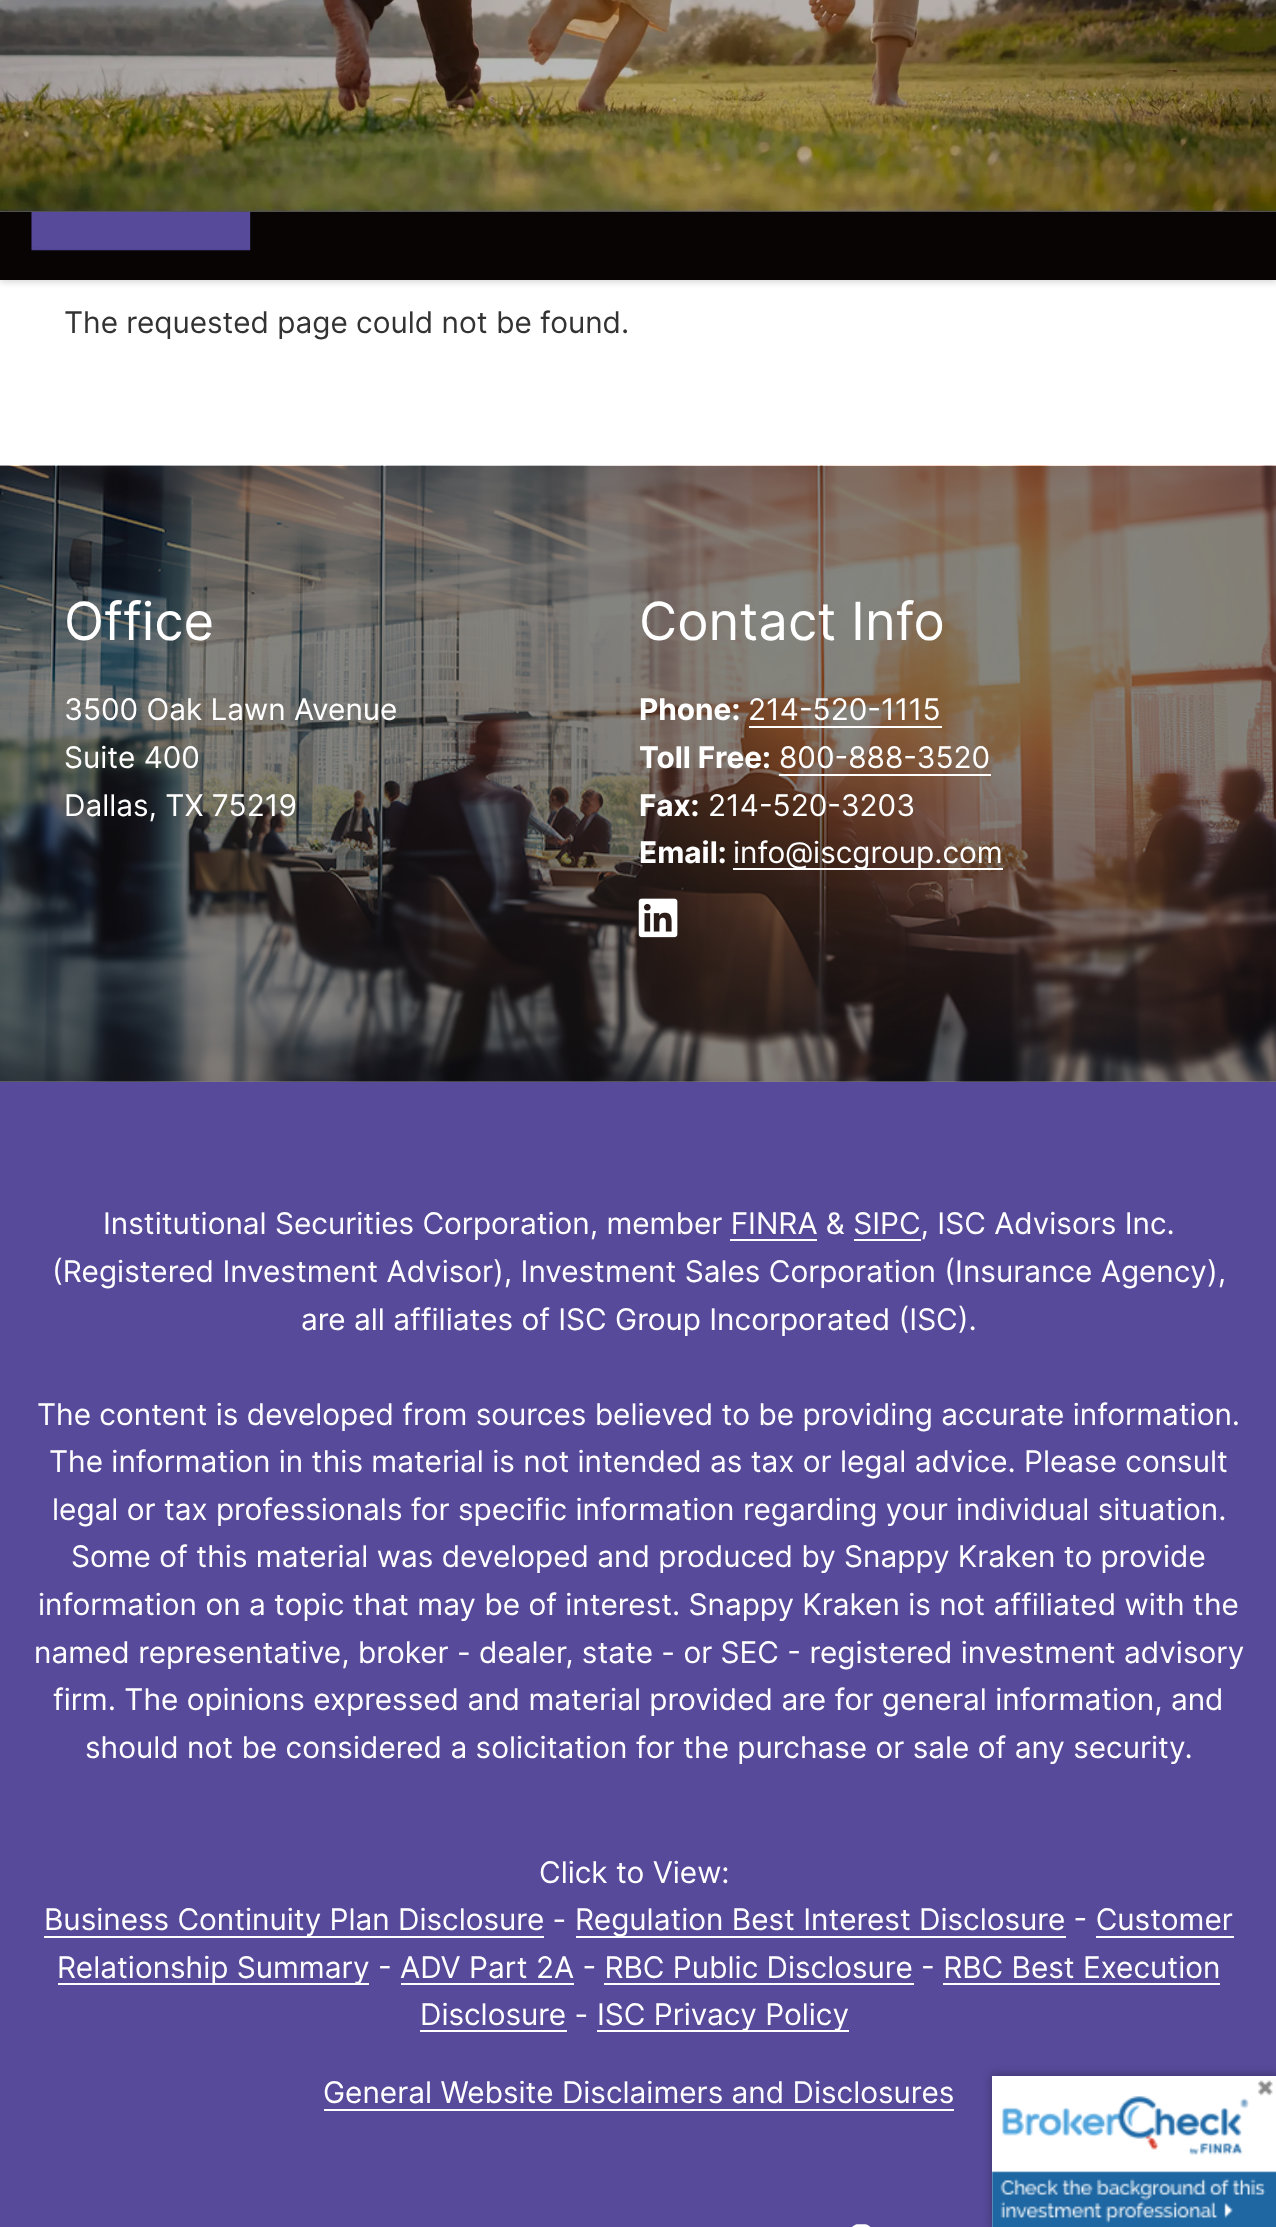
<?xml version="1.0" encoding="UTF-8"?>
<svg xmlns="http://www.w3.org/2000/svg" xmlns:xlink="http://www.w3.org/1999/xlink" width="1276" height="2227">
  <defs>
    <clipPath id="clip1"><path d="M 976 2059 h 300 v 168 h -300 z m 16 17 h 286 v 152 h -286 z" clip-rule="evenodd" /></clipPath>
  </defs>
  <rect width="100%" height="100%" fill="#ffffff" />
  <rect y="1081" width="1276" height="1" fill="#858585" />
  <rect y="2" width="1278" height="280" fill="#000000" fill-opacity="0.16" filter="blur(3.5px)" />
  <rect y="212" width="1276" height="68" fill="#080404" />
  <image x="31" y="212" width="220" height="39" xlink:href="image1.png" />
  <rect y="211" width="1276" height="1" fill="#fefefe" />
  <image x="0" y="0" width="1276" height="212" xlink:href="image2.png" />
  <rect width="1276" height="212" fill="#000000" fill-opacity="0.28" />
  <image x="0" y="465" width="1276" height="617" xlink:href="image3.png" />
  <rect x="749" y="726" width="193" height="2" fill="#ffffff" />
  <rect x="779" y="774" width="212" height="2" fill="#ffffff" />
  <rect x="733" y="868" width="270" height="2" fill="#ffffff" />
  <image x="638" y="898" width="40" height="40" xlink:href="image4.png" />
  <rect y="1082" width="1276" height="1109" fill="#574a9a" />
  <rect x="730" y="1239" width="87" height="2" fill="#ffffff" />
  <rect x="854" y="1239" width="67" height="2" fill="#ffffff" />
  <rect x="44" y="1936" width="500" height="2" fill="#ffffff" />
  <rect x="576" y="1936" width="490" height="2" fill="#ffffff" />
  <rect x="1096" y="1936" width="138" height="2" fill="#ffffff" />
  <rect x="58" y="1983" width="311" height="2" fill="#ffffff" />
  <rect x="401" y="1983" width="173" height="2" fill="#ffffff" />
  <rect x="604" y="1983" width="310" height="2" fill="#ffffff" />
  <rect x="943" y="1983" width="277" height="2" fill="#ffffff" />
  <rect x="420" y="2030" width="147" height="2" fill="#ffffff" />
  <rect x="597" y="2030" width="252" height="2" fill="#ffffff" />
  <rect x="324" y="2109" width="630" height="2" fill="#ffffff" />
  <rect y="2191" width="992" height="36" fill="#574a9a" />
  <image x="852" y="2224" width="19" height="3" xlink:href="image5.png" />
  <rect x="992" y="2076" width="284" height="115" fill="#ffffff" />
  <g clip-path="url(#clip1)">
    <rect x="991" y="2074" width="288" height="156" fill="#000000" fill-opacity="0.25" filter="blur(4.5px)" />
  </g>
  <image x="992" y="2080" width="284" height="147" xlink:href="image6.png" />
  <text x="64" y="333" style="font-family: Inter; font-size: 29.75px; fill: #333333">The requested page could not be found.</text>
  <text x="64" y="640" style="font-family: Inter; font-size: 52.5px; fill: #ffffff">Office</text>
  <text x="64" y="720" style="font-family: Inter; font-size: 29.75px; fill: #ffffff">3500 Oak Lawn Avenue</text>
  <text x="64" y="768" style="font-family: Inter; font-size: 29.75px; fill: #ffffff">Suite 400</text>
  <text x="64" y="816" style="font-family: Inter; font-size: 29.75px; fill: #ffffff">Dallas, TX 75219</text>
  <text x="639" y="640" style="font-family: Inter; font-size: 52.5px; fill: #ffffff">Contact Info</text>
  <text x="639" y="720" style="font-family: Inter; font-size: 29.75px; font-weight: bold; fill: #ffffff">Phone:</text>
  <text x="748" y="720" style="font-family: Inter; font-size: 29.75px; fill: #ffffff">214-520-1115</text>
  <text x="639" y="768" style="font-family: Inter; font-size: 29.75px; font-weight: bold; fill: #ffffff">Toll Free:</text>
  <text x="779" y="768" style="font-family: Inter; font-size: 29.75px; fill: #ffffff">800-888-3520</text>
  <text x="639" y="816" style="font-family: Inter; font-size: 29.75px; font-weight: bold; fill: #ffffff">Fax:</text>
  <text x="708" y="816" style="font-family: Inter; font-size: 29.75px; fill: #ffffff">214-520-3203</text>
  <text x="639" y="863" style="font-family: Inter; font-size: 29.75px; font-weight: bold; fill: #ffffff">Email:</text>
  <text x="733" y="863" style="font-family: Inter; font-size: 29.75px; fill: #ffffff">info@iscgroup.com</text>
  <text x="103" y="1234" style="font-family: Inter; font-size: 29.75px; fill: #ffffff">Institutional Securities Corporation, member FINRA &amp; SIPC, ISC Advisors Inc.</text>
  <text x="52" y="1282" style="font-family: Inter; font-size: 29.75px; fill: #ffffff">(Registered Investment Advisor), Investment Sales Corporation (Insurance Agency),</text>
  <text x="301" y="1330" style="font-family: Inter; font-size: 29.75px; fill: #ffffff">are all affiliates of ISC Group Incorporated (ISC).</text>
  <text x="37" y="1425" style="font-family: Inter; font-size: 29.75px; fill: #ffffff">The content is developed from sources believed to be providing accurate information.</text>
  <text x="49" y="1472" style="font-family: Inter; font-size: 29.75px; fill: #ffffff">The information in this material is not intended as tax or legal advice. Please consult</text>
  <text x="52" y="1520" style="font-family: Inter; font-size: 29.75px; fill: #ffffff">legal or tax professionals for specific information regarding your individual situation.</text>
  <text x="71" y="1567" style="font-family: Inter; font-size: 29.75px; fill: #ffffff">Some of this material was developed and produced by Snappy Kraken to provide</text>
  <text x="38" y="1615" style="font-family: Inter; font-size: 29.75px; fill: #ffffff">information on a topic that may be of interest. Snappy Kraken is not affiliated with the</text>
  <text x="34" y="1663" style="font-family: Inter; font-size: 29.75px; fill: #ffffff">named representative, broker - dealer, state - or SEC - registered investment advisory</text>
  <text x="53" y="1710" style="font-family: Inter; font-size: 29.75px; fill: #ffffff">firm. The opinions expressed and material provided are for general information, and</text>
  <text x="85" y="1758" style="font-family: Inter; font-size: 29.75px; fill: #ffffff">should not be considered a solicitation for the purchase or sale of any security.</text>
  <text x="539" y="1883" style="font-family: Inter; font-size: 29.75px; fill: #ffffff">Click to View:</text>
  <text x="44" y="1930" style="font-family: Inter; font-size: 29.75px; fill: #ffffff">Business Continuity Plan Disclosure -</text>
  <text x="575" y="1930" style="font-family: Inter; font-size: 29.75px; fill: #ffffff">Regulation Best Interest Disclosure - Customer</text>
  <text x="57" y="1978" style="font-family: Inter; font-size: 29.75px; fill: #ffffff">Relationship Summary - ADV Part 2A - RBC Public Disclosure - RBC Best Execution</text>
  <text x="420" y="2025" style="font-family: Inter; font-size: 29.75px; fill: #ffffff">Disclosure -</text>
  <text x="597" y="2025" style="font-family: Inter; font-size: 29.75px; fill: #ffffff">ISC Privacy Policy</text>
  <text x="323" y="2103" style="font-family: Inter; font-size: 29.75px; fill: #ffffff">General Website Disclaimers and Disclosures</text>
</svg>
